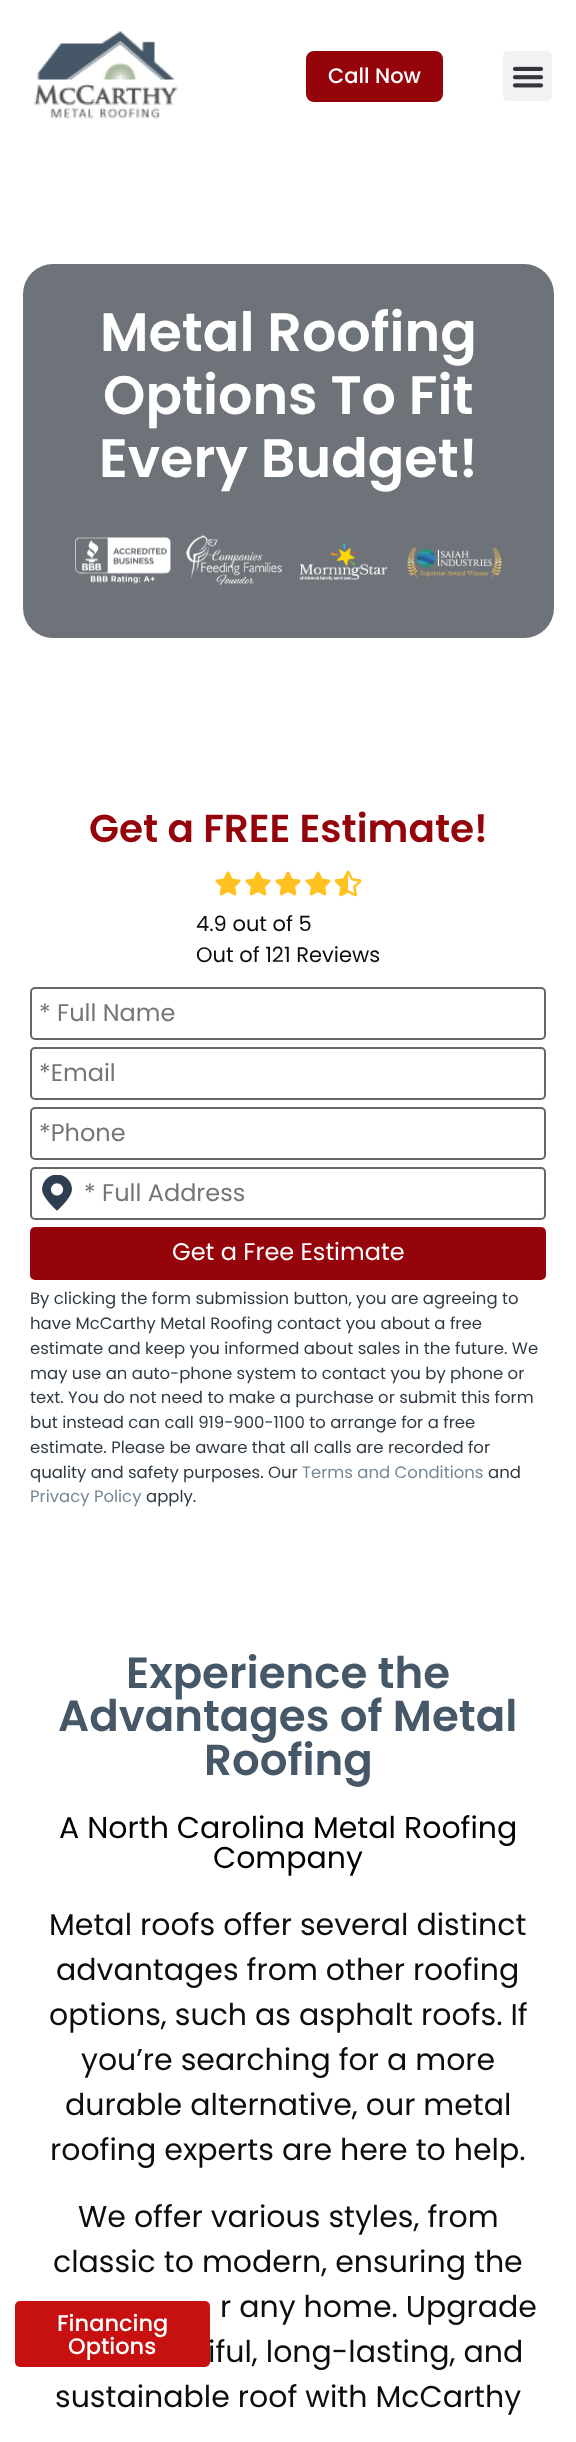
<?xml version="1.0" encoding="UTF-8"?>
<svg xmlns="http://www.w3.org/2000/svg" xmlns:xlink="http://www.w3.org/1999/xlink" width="576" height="2442">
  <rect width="100%" height="100%" fill="#ffffff" />
  <image x="33" y="31" width="145" height="88" xlink:href="image1.png" />
  <rect x="306" y="51" width="137" height="51" rx="8" fill="#95040a" />
  <rect x="503" y="51" width="49" height="50" rx="5" fill="#f2f2f2" />
  <image x="512" y="66" width="32" height="22" xlink:href="image2.png" />
  <rect x="23" y="264" width="531" height="374" rx="30" fill="#6e737a" />
  <image x="75" y="537" width="96" height="47" xlink:href="image3.png" />
  <image x="186" y="535" width="96" height="50" xlink:href="image4.png" />
  <image x="299" y="542" width="88" height="39" xlink:href="image5.png" />
  <image x="407" y="547" width="95" height="31" xlink:href="image6.png" />
  <image x="215" y="871" width="26" height="25" xlink:href="image7.png" />
  <image x="245" y="871" width="26" height="25" xlink:href="image7.png" />
  <image x="275" y="871" width="26" height="25" xlink:href="image7.png" />
  <image x="305" y="871" width="26" height="25" xlink:href="image7.png" />
  <image x="335" y="870" width="27" height="27" xlink:href="image8.png" />
  <rect x="31" y="988" width="514" height="51" rx="4" fill="none" stroke="#666666" stroke-width="2" />
  <rect x="31" y="1048" width="514" height="51" rx="4" fill="none" stroke="#666666" stroke-width="2" />
  <rect x="31" y="1108" width="514" height="51" rx="4" fill="none" stroke="#666666" stroke-width="2" />
  <rect x="31" y="1168" width="514" height="51" rx="4" fill="none" stroke="#666666" stroke-width="2" />
  <image x="42" y="1175" width="30" height="36" xlink:href="image9.png" />
  <rect x="30" y="1227" width="516" height="53" rx="5" fill="#95040a" />
  <rect x="15" y="2301" width="195" height="66" rx="5" fill="#c71010" />
  <text x="328" y="83" style="font-family: Poppins; font-size: 21px; font-weight: 500; fill: #ffffff">Call Now</text>
  <text x="100" y="351" style="font-family: Poppins; font-size: 54px; font-weight: 600; fill: #ffffff">Metal Roofing</text>
  <text x="103" y="414" style="font-family: Poppins; font-size: 54px; font-weight: 600; fill: #ffffff">Options To Fit</text>
  <text x="99" y="477" style="font-family: Poppins; font-size: 54px; font-weight: 600; fill: #ffffff">Every Budget!</text>
  <text x="89" y="842" style="font-family: Poppins; font-size: 39px; font-weight: 600; fill: #95040a">Get a FREE Estimate!</text>
  <text x="196" y="931" style="font-family: Poppins; font-size: 21px; fill: #0d0d0d">4.9 out of 5</text>
  <text x="196" y="962" style="font-family: Poppins; font-size: 21px; fill: #0d0d0d">Out of 121 Reviews</text>
  <text x="39" y="1021" style="font-family: Poppins; font-size: 24px; fill: #757575">* Full Name</text>
  <text x="39" y="1081" style="font-family: Poppins; font-size: 24px; fill: #757575">*Email</text>
  <text x="39" y="1141" style="font-family: Poppins; font-size: 24px; fill: #757575">*Phone</text>
  <text x="84" y="1201" style="font-family: Poppins; font-size: 24px; fill: #757575">* Full Address</text>
  <text x="172" y="1260" style="font-family: Poppins; font-size: 24px; fill: #ffffff">Get a Free Estimate</text>
  <text x="30" y="1304" style="font-family: Poppins; font-size: 16.5px; fill: #2f3a44">By clicking the form submission button, you are agreeing to</text>
  <text x="30" y="1329" style="font-family: Poppins; font-size: 16.5px; fill: #2f3a44">have McCarthy Metal Roofing contact you about a free</text>
  <text x="30" y="1354" style="font-family: Poppins; font-size: 16.5px; fill: #2f3a44">estimate and keep you informed about sales in the future. We</text>
  <text x="30" y="1379" style="font-family: Poppins; font-size: 16.5px; fill: #2f3a44">may use an auto-phone system to contact you by phone or</text>
  <text x="30" y="1403" style="font-family: Poppins; font-size: 16.5px; fill: #2f3a44">text. You do not need to make a purchase or submit this form</text>
  <text x="30" y="1428" style="font-family: Poppins; font-size: 16.5px; fill: #2f3a44">but instead can call 919-900-1100 to arrange for a free</text>
  <text x="30" y="1453" style="font-family: Poppins; font-size: 16.5px; fill: #2f3a44">estimate. Please be aware that all calls are recorded for</text>
  <text x="30" y="1478" style="font-family: Poppins; font-size: 16.5px; fill: #2f3a44">quality and safety purposes. Our</text>
  <text x="302" y="1478" style="font-family: Poppins; font-size: 16.5px; fill: #748798">Terms and Conditions</text>
  <text x="488" y="1478" style="font-family: Poppins; font-size: 16.5px; fill: #2f3a44">and</text>
  <text x="30" y="1502" style="font-family: Poppins; font-size: 16.5px; fill: #748798">Privacy Policy</text>
  <text x="146" y="1502" style="font-family: Poppins; font-size: 16.5px; fill: #2f3a44">apply.</text>
  <text x="126" y="1688" style="font-family: Poppins; font-size: 43.5px; font-weight: 600; fill: #465767">Experience the</text>
  <text x="58" y="1731" style="font-family: Poppins; font-size: 43.5px; font-weight: 600; fill: #465767">Advantages of Metal</text>
  <text x="204" y="1775" style="font-family: Poppins; font-size: 43.5px; font-weight: 600; fill: #465767">Roofing</text>
  <text x="59" y="1838" style="font-family: Poppins; font-size: 30px; fill: #000000">A North Carolina Metal Roofing</text>
  <text x="213" y="1868" style="font-family: Poppins; font-size: 30px; fill: #000000">Company</text>
  <text x="49" y="1935" style="font-family: Poppins; font-size: 30px; fill: #0d0d0d">Metal roofs offer several distinct</text>
  <text x="56" y="1980" style="font-family: Poppins; font-size: 30px; fill: #0d0d0d">advantages from other roofing</text>
  <text x="49" y="2025" style="font-family: Poppins; font-size: 30px; fill: #0d0d0d">options, such as asphalt roofs. If</text>
  <text x="81" y="2070" style="font-family: Poppins; font-size: 30px; fill: #0d0d0d">you’re searching for a more</text>
  <text x="65" y="2115" style="font-family: Poppins; font-size: 30px; fill: #0d0d0d">durable alternative, our metal</text>
  <text x="50" y="2160" style="font-family: Poppins; font-size: 30px; fill: #0d0d0d">roofing experts are here to help.</text>
  <text x="78" y="2227" style="font-family: Poppins; font-size: 30px; fill: #0d0d0d">We offer various styles, from</text>
  <text x="53" y="2272" style="font-family: Poppins; font-size: 30px; fill: #0d0d0d">classic to modern, ensuring the</text>
  <text x="220" y="2317" style="font-family: Poppins; font-size: 30px; fill: #0d0d0d">r any home. Upgrade</text>
  <text x="208" y="2362" style="font-family: Poppins; font-size: 30px; fill: #0d0d0d">iful, long-lasting, and</text>
  <text x="55" y="2407" style="font-family: Poppins; font-size: 30px; fill: #0d0d0d">sustainable roof with McCarthy</text>
  <text x="57" y="2331" style="font-family: Poppins; font-size: 22.5px; font-weight: 500; fill: #ffffff">Financing</text>
  <text x="68" y="2354" style="font-family: Poppins; font-size: 22.5px; font-weight: 500; fill: #ffffff">Options</text>
</svg>
